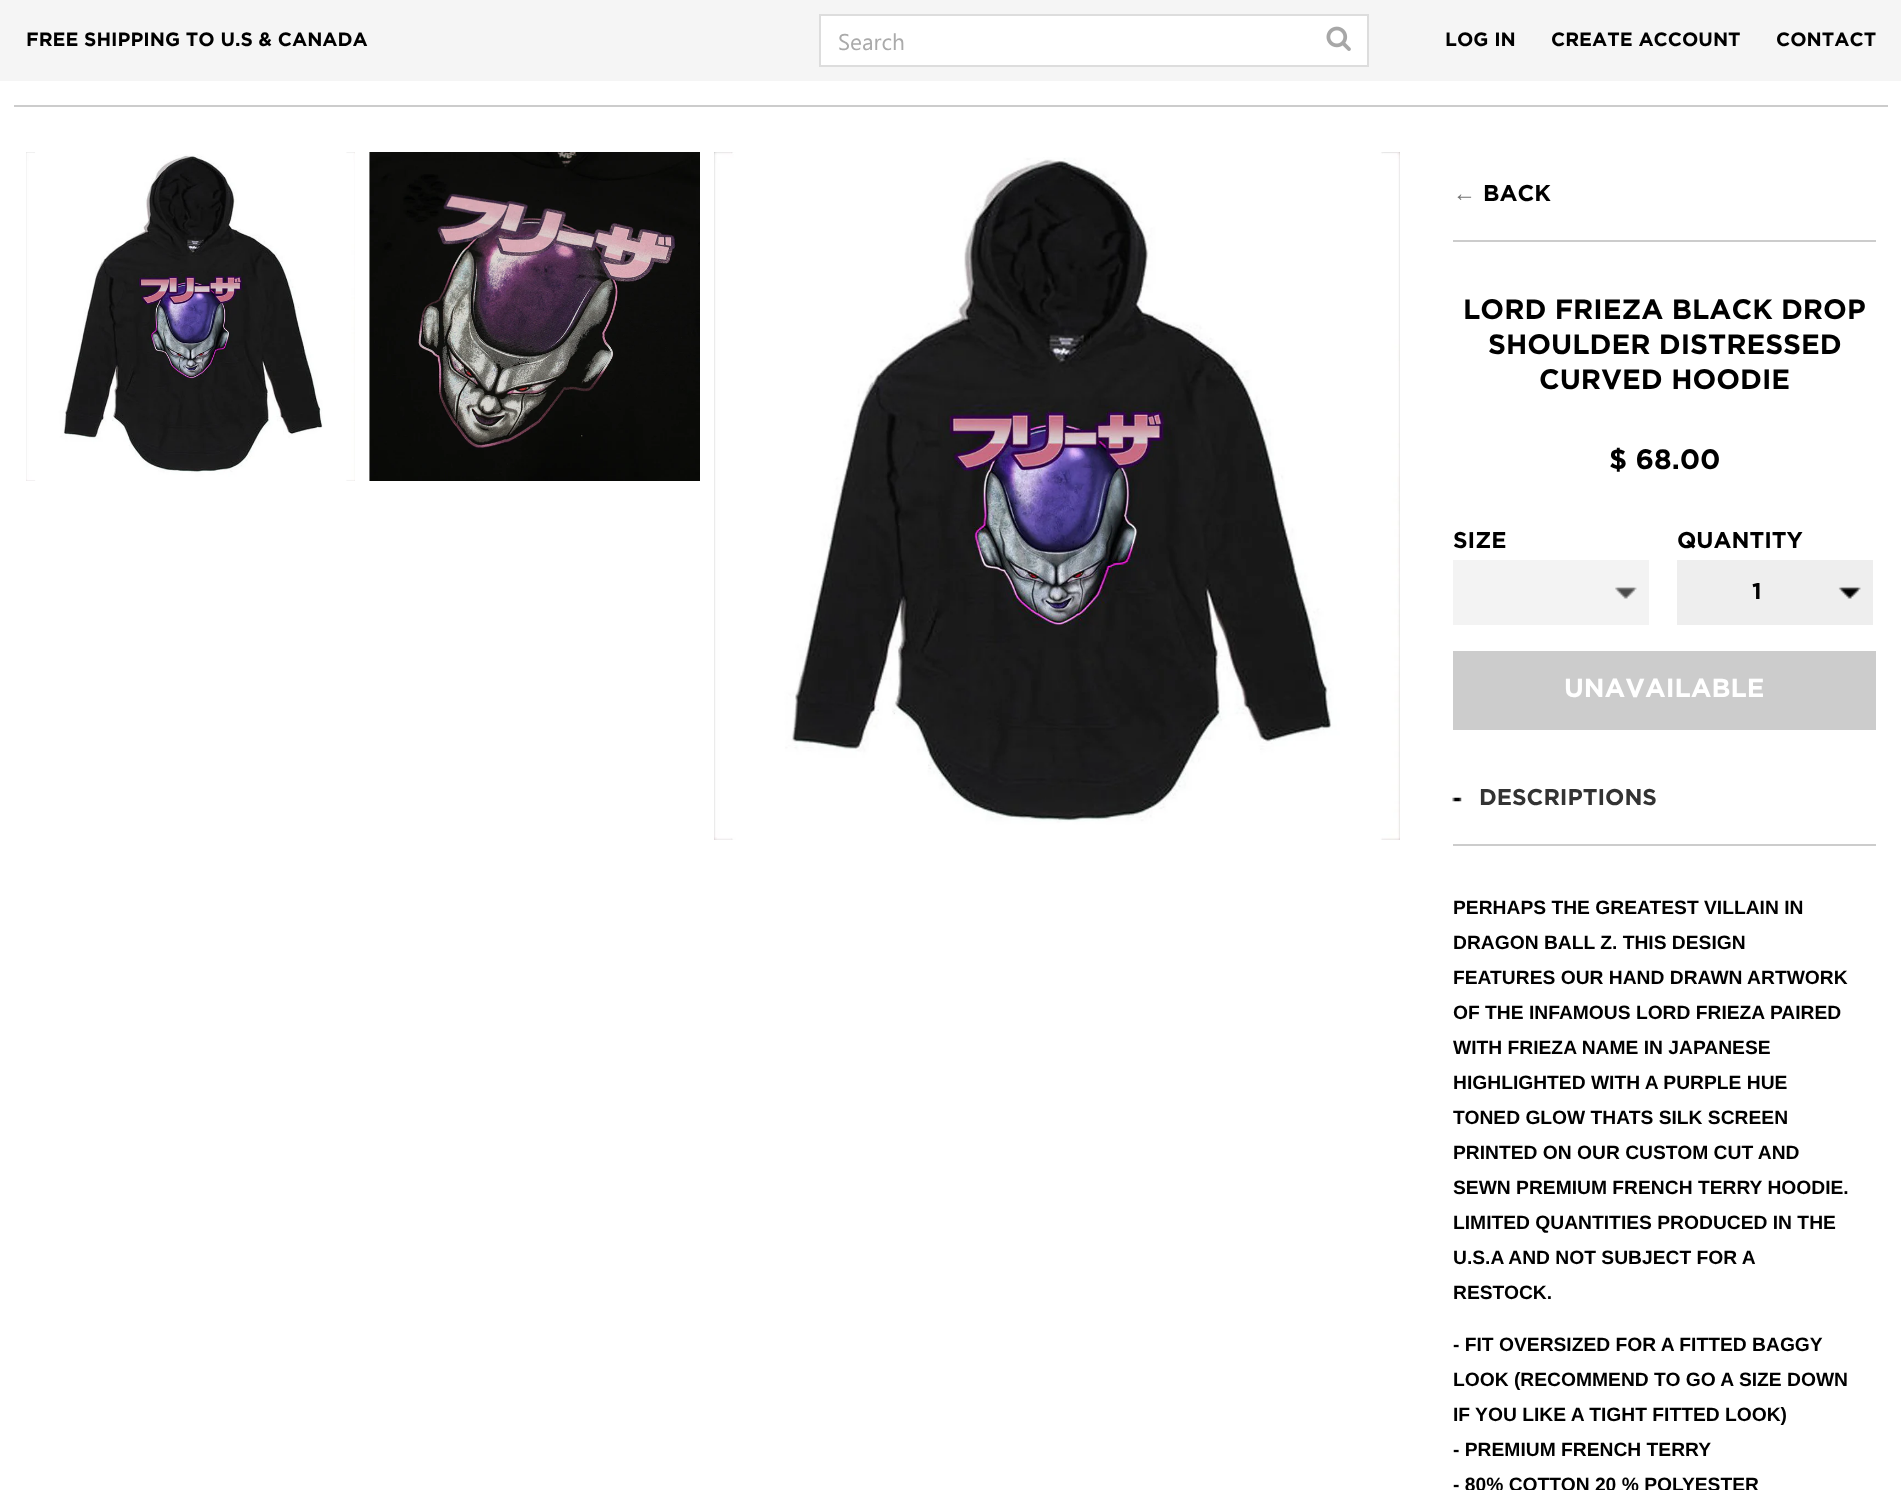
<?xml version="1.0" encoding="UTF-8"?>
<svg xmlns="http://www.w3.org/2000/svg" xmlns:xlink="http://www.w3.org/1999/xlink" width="1901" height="1490">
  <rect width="100%" height="100%" fill="#ffffff" />
  <rect width="1901" height="81" fill="#f5f5f5" />
  <rect x="820" y="15" width="548" height="51" fill="#ffffff" stroke="#dddddd" stroke-width="2" />
  <image x="1326" y="26" width="25" height="25" xlink:href="image1.png" />
  <rect x="14" y="105" width="1874" height="2" fill="#cccccc" />
  <image x="26" y="152" width="329" height="329" xlink:href="image2.png" />
  <image x="369" y="152" width="331" height="329" xlink:href="image3.png" />
  <image x="714" y="152" width="686" height="688" xlink:href="image4.png" />
  <rect x="1453" y="240" width="423" height="2" fill="#cccccc" />
  <rect x="1453" y="560" width="196" height="65" fill="#f3f3f3" />
  <image x="1615" y="587" width="22" height="12" xlink:href="image5.png" />
  <rect x="1677" y="560" width="196" height="65" fill="#eeeeee" />
  <image x="1838" y="587" width="23" height="12" xlink:href="image6.png" />
  <rect x="1453" y="651" width="423" height="79" fill="#cccccc" />
  <rect x="1453" y="844" width="423" height="2" fill="#cccccc" />
  <image x="1452" y="797" width="10" height="5" xlink:href="image7.png" />
  <text x="26" y="46" style="font-family: Gotham; font-size: 19.25px; font-weight: bold; fill: #000000">FREE SHIPPING TO U.S &amp; CANADA</text>
  <text x="838" y="50" style="font-family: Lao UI; font-size: 22.75px; fill: #aaaaaa">Search</text>
  <text x="1445" y="46" style="font-family: Gotham; font-size: 19.25px; font-weight: bold; fill: #000000">LOG IN</text>
  <text x="1551" y="46" style="font-family: Gotham; font-size: 19.25px; font-weight: bold; fill: #000000">CREATE ACCOUNT</text>
  <text x="1776" y="46" style="font-family: Gotham; font-size: 19.25px; font-weight: bold; fill: #000000">CONTACT</text>
  <text x="1453" y="201" style="font-family: Liberation Serif; font-size: 22.75px; fill: #737373">←</text>
  <text x="1483" y="201" style="font-family: Gotham; font-size: 22.75px; font-weight: bold; fill: #000000">BACK</text>
  <text x="1463" y="319" style="font-family: Gotham; font-size: 28px; font-weight: bold; fill: #000000">LORD FRIEZA BLACK DROP</text>
  <text x="1488" y="354" style="font-family: Gotham; font-size: 28px; font-weight: bold; fill: #000000">SHOULDER DISTRESSED</text>
  <text x="1539" y="389" style="font-family: Gotham; font-size: 28px; font-weight: bold; fill: #000000">CURVED HOODIE</text>
  <text x="1609" y="469" style="font-family: Gotham; font-size: 28px; font-weight: bold; fill: #000000">$ 68.00</text>
  <text x="1453" y="548" style="font-family: Gotham; font-size: 22.75px; font-weight: bold; fill: #000000">SIZE</text>
  <text x="1677" y="548" style="font-family: Gotham; font-size: 22.75px; font-weight: bold; fill: #000000">QUANTITY</text>
  <text x="1752" y="599" style="font-family: Gotham; font-size: 22.75px; font-weight: bold; fill: #000000">1</text>
  <text x="1564" y="697" style="font-family: Gotham; font-size: 26.25px; font-weight: bold; fill: #ffffff">UNAVAILABLE</text>
  <text x="1479" y="805" style="font-family: Gotham; font-size: 22.75px; font-weight: bold; fill: #333333">DESCRIPTIONS</text>
  <text x="1453" y="914" style="font-family: Liberation Sans; font-size: 19.25px; font-weight: bold; fill: #000000">PERHAPS THE GREATEST VILLAIN IN</text>
  <text x="1453" y="949" style="font-family: Liberation Sans; font-size: 19.25px; font-weight: bold; fill: #000000">DRAGON BALL Z. THIS DESIGN</text>
  <text x="1453" y="984" style="font-family: Liberation Sans; font-size: 19.25px; font-weight: bold; fill: #000000">FEATURES OUR HAND DRAWN ARTWORK</text>
  <text x="1453" y="1019" style="font-family: Liberation Sans; font-size: 19.25px; font-weight: bold; fill: #000000">OF THE INFAMOUS LORD FRIEZA PAIRED</text>
  <text x="1453" y="1054" style="font-family: Liberation Sans; font-size: 19.25px; font-weight: bold; fill: #000000">WITH FRIEZA NAME IN JAPANESE</text>
  <text x="1453" y="1089" style="font-family: Liberation Sans; font-size: 19.25px; font-weight: bold; fill: #000000">HIGHLIGHTED WITH A PURPLE HUE</text>
  <text x="1453" y="1124" style="font-family: Liberation Sans; font-size: 19.25px; font-weight: bold; fill: #000000">TONED GLOW THATS SILK SCREEN</text>
  <text x="1453" y="1159" style="font-family: Liberation Sans; font-size: 19.25px; font-weight: bold; fill: #000000">PRINTED ON OUR CUSTOM CUT AND</text>
  <text x="1453" y="1194" style="font-family: Liberation Sans; font-size: 19.25px; font-weight: bold; fill: #000000">SEWN PREMIUM FRENCH TERRY HOODIE.</text>
  <text x="1453" y="1229" style="font-family: Liberation Sans; font-size: 19.25px; font-weight: bold; fill: #000000">LIMITED QUANTITIES PRODUCED IN THE</text>
  <text x="1453" y="1264" style="font-family: Liberation Sans; font-size: 19.25px; font-weight: bold; fill: #000000">U.S.A AND NOT SUBJECT FOR A</text>
  <text x="1453" y="1299" style="font-family: Liberation Sans; font-size: 19.25px; font-weight: bold; fill: #000000">RESTOCK.</text>
  <text x="1453" y="1351" style="font-family: Liberation Sans; font-size: 19.25px; font-weight: bold; fill: #000000">- FIT OVERSIZED FOR A FITTED BAGGY</text>
  <text x="1453" y="1386" style="font-family: Liberation Sans; font-size: 19.25px; font-weight: bold; fill: #000000">LOOK (RECOMMEND TO GO A SIZE DOWN</text>
  <text x="1453" y="1421" style="font-family: Liberation Sans; font-size: 19.25px; font-weight: bold; fill: #000000">IF YOU LIKE A TIGHT FITTED LOOK)</text>
  <text x="1453" y="1456" style="font-family: Liberation Sans; font-size: 19.25px; font-weight: bold; fill: #000000">- PREMIUM FRENCH TERRY</text>
  <text x="1453" y="1491" style="font-family: Liberation Sans; font-size: 19.25px; font-weight: bold; fill: #000000">- 80% COTTON 20 % POLYESTER</text>
</svg>
